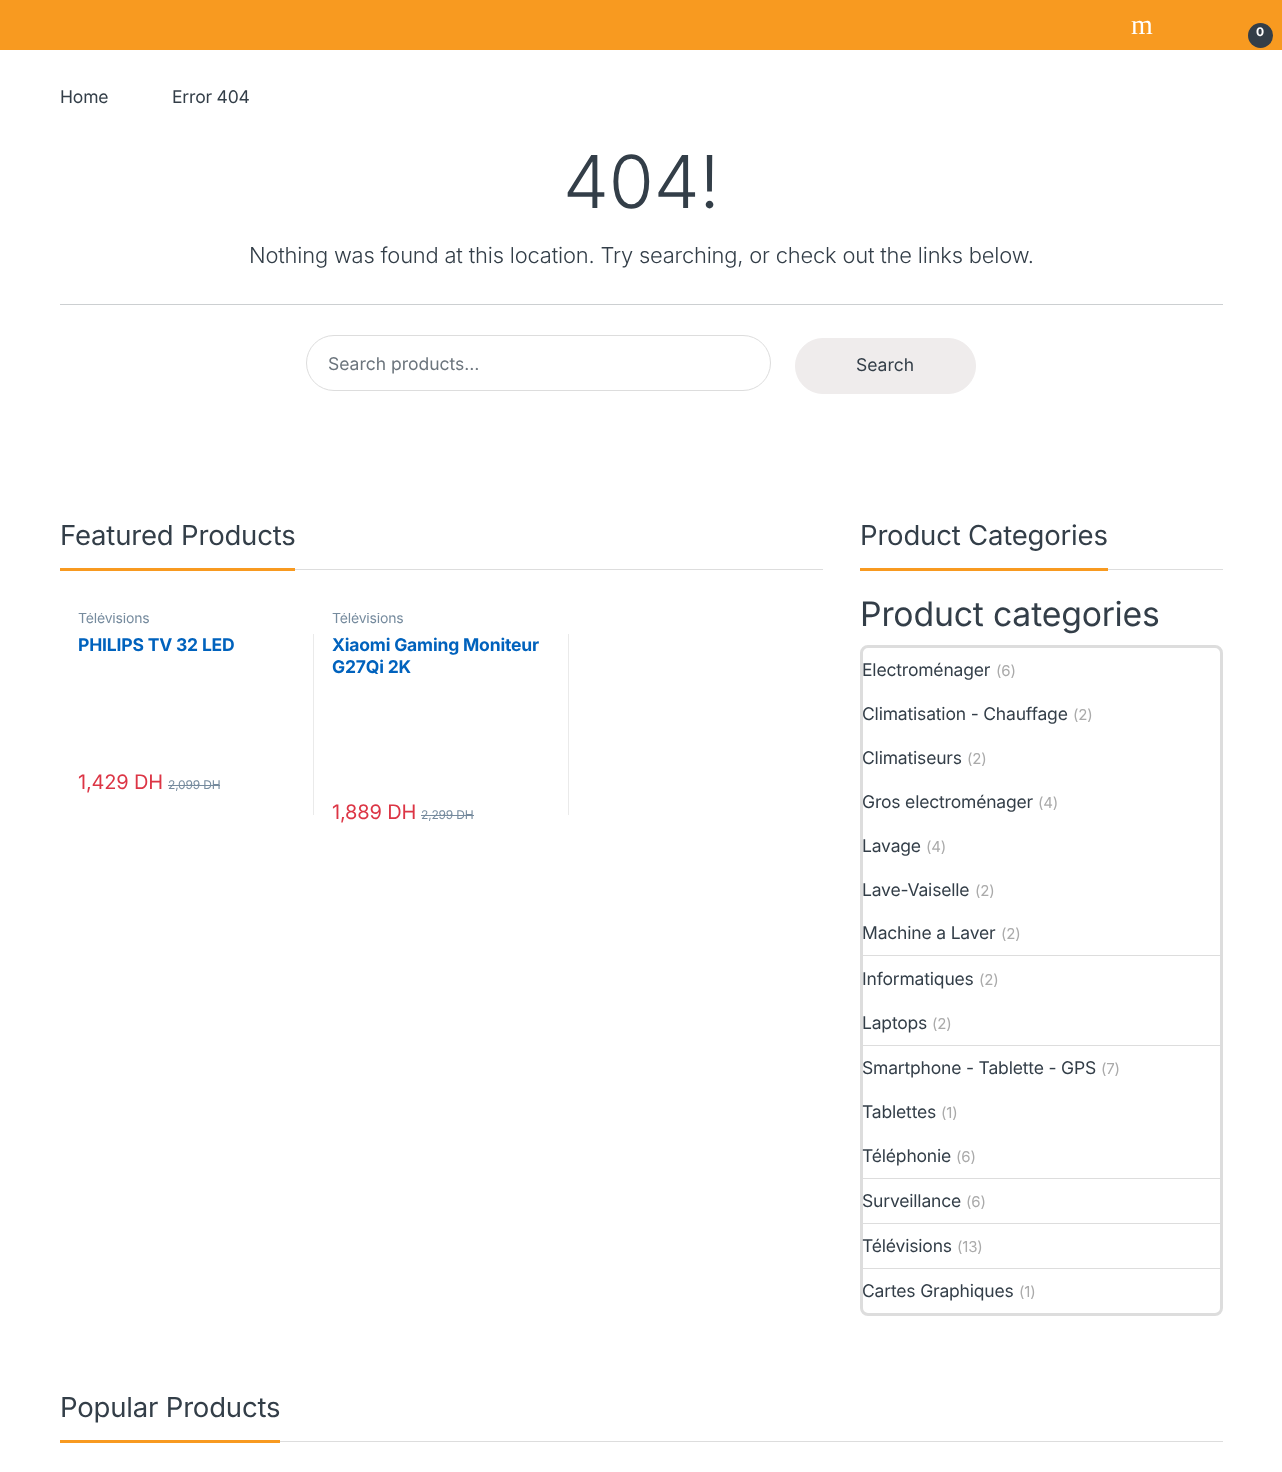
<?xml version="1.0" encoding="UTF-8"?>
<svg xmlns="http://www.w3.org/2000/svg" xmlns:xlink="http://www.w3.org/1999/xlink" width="1282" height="1472">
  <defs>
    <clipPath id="clip1"><rect x="78" y="613" width="218" height="15" /></clipPath>
    <clipPath id="clip2"><rect x="331" y="613" width="220" height="15" /></clipPath>
  </defs>
  <rect width="100%" height="100%" fill="#ffffff" />
  <rect width="1282" height="50" fill="#f89a20" />
  <circle cx="1260.5" cy="35.5" r="12.5" fill="#333e48" />
  <rect x="60" y="304" width="1163" height="1" fill="#cccfd1" />
  <rect x="306.5" y="335.5" width="464" height="55" rx="27.5" fill="none" stroke="#dddddd" />
  <rect x="795.5" y="338.5" width="180" height="55" rx="27.5" fill="#efecec" stroke="#efecec" />
  <rect x="295" y="569" width="528" height="1" fill="#dddddd" />
  <rect x="60" y="568" width="235" height="3" fill="#f89a20" />
  <rect x="168" y="785" width="52" height="1" fill="#768b9e" />
  <rect x="313" y="634" width="1" height="181" fill="#eaeaea" />
  <rect x="421" y="815" width="53" height="1" fill="#768b9e" />
  <rect x="568" y="634" width="1" height="181" fill="#eaeaea" />
  <rect x="1108" y="569" width="115" height="1" fill="#dddddd" />
  <rect x="860" y="568" width="248" height="3" fill="#f89a20" />
  <rect x="861.5" y="646.5" width="360" height="668" rx="6.5" fill="none" stroke="#dddddd" stroke-width="3" />
  <rect x="863" y="955" width="357" height="1" fill="#dddddd" />
  <rect x="863" y="1045" width="357" height="1" fill="#dddddd" />
  <rect x="863" y="1178" width="357" height="1" fill="#dddddd" />
  <rect x="863" y="1223" width="357" height="1" fill="#dddddd" />
  <rect x="863" y="1268" width="357" height="1" fill="#dddddd" />
  <rect x="280" y="1441" width="943" height="1" fill="#dddddd" />
  <rect x="60" y="1440" width="220" height="3" fill="#f89a20" />
  <text x="1131" y="34" style="font-family: Liberation Serif; font-size: 28px; letter-spacing: -0.18px; fill: #ffffff">m</text>
  <text x="1256" y="36" style="font-family: Inter; font-size: 12px; font-weight: bold; letter-spacing: -0.18px; fill: #ffffff">0</text>
  <text x="60" y="103" style="font-family: Inter; font-size: 17.5px; letter-spacing: -0.18px; fill: #333e48">Home</text>
  <text x="172" y="103" style="font-family: Inter; font-size: 17.5px; letter-spacing: -0.18px; fill: #333e48">Error 404</text>
  <text x="563" y="208" style="font-family: Inter; font-size: 73px; font-weight: 300; letter-spacing: -0.18px; fill: #333e48">404!</text>
  <text x="249" y="263" style="font-family: Inter; font-size: 21.9px; font-weight: 300; letter-spacing: -0.18px; fill: #333e48">Nothing was found at this location. Try searching, or check out the links below.</text>
  <text x="328" y="370" style="font-family: Inter; font-size: 17.5px; fill: #6c757d">Search products…</text>
  <text x="856" y="371" style="font-family: Inter; font-size: 17.5px; fill: #333e48">Search</text>
  <text x="60" y="545" style="font-family: Inter; font-size: 27.5px; letter-spacing: -0.18px; fill: #333e48">Featured Products</text>
  <g clip-path="url(#clip1)">
    <text x="78" y="623" style="font-family: Inter; font-size: 14px; letter-spacing: -0.18px; fill: #768b9e">Télévisions</text>
  </g>
  <text x="78" y="651" style="font-family: Inter; font-size: 17.5px; font-weight: bold; letter-spacing: -0.18px; fill: #0062bd">PHILIPS TV 32 LED</text>
  <text x="78" y="789" style="font-family: Inter; font-size: 20px; letter-spacing: -0.18px; fill: #dc3545">1,429 DH</text>
  <text x="168" y="789" style="font-family: Inter; font-size: 12px; letter-spacing: -0.18px; fill: #768b9e">2,099 DH</text>
  <g clip-path="url(#clip2)">
    <text x="332" y="623" style="font-family: Inter; font-size: 14px; letter-spacing: -0.18px; fill: #768b9e">Télévisions</text>
  </g>
  <text x="332" y="651" style="font-family: Inter; font-size: 17.5px; font-weight: bold; letter-spacing: -0.18px; fill: #0062bd">Xiaomi Gaming Moniteur</text>
  <text x="332" y="673" style="font-family: Inter; font-size: 17.5px; font-weight: bold; letter-spacing: -0.18px; fill: #0062bd">G27Qi 2K</text>
  <text x="332" y="819" style="font-family: Inter; font-size: 20px; letter-spacing: -0.18px; fill: #dc3545">1,889 DH</text>
  <text x="421" y="819" style="font-family: Inter; font-size: 12px; letter-spacing: -0.18px; fill: #768b9e">2,299 DH</text>
  <text x="860" y="545" style="font-family: Inter; font-size: 27.5px; letter-spacing: -0.18px; fill: #333e48">Product Categories</text>
  <text x="860" y="626" style="font-family: Inter; font-size: 33.75px; letter-spacing: -0.18px; fill: #333e48">Product categories</text>
  <text x="862" y="676" style="font-family: Inter; font-size: 17.5px; letter-spacing: -0.18px; fill: #333e48">Electroménager</text>
  <text x="996" y="676" style="font-family: Inter; font-size: 15px; letter-spacing: -0.18px; fill: #aaaaaa">(6)</text>
  <text x="862" y="720" style="font-family: Inter; font-size: 17.5px; letter-spacing: -0.18px; fill: #333e48">Climatisation - Chauffage</text>
  <text x="1073" y="720" style="font-family: Inter; font-size: 15px; letter-spacing: -0.18px; fill: #aaaaaa">(2)</text>
  <text x="862" y="764" style="font-family: Inter; font-size: 17.5px; letter-spacing: -0.18px; fill: #333e48">Climatiseurs</text>
  <text x="967" y="764" style="font-family: Inter; font-size: 15px; letter-spacing: -0.18px; fill: #aaaaaa">(2)</text>
  <text x="862" y="808" style="font-family: Inter; font-size: 17.5px; letter-spacing: -0.18px; fill: #333e48">Gros electroménager</text>
  <text x="1038" y="808" style="font-family: Inter; font-size: 15px; letter-spacing: -0.18px; fill: #aaaaaa">(4)</text>
  <text x="862" y="852" style="font-family: Inter; font-size: 17.5px; letter-spacing: -0.18px; fill: #333e48">Lavage</text>
  <text x="926" y="852" style="font-family: Inter; font-size: 15px; letter-spacing: -0.18px; fill: #aaaaaa">(4)</text>
  <text x="862" y="896" style="font-family: Inter; font-size: 17.5px; letter-spacing: -0.18px; fill: #333e48">Lave-Vaiselle</text>
  <text x="975" y="896" style="font-family: Inter; font-size: 15px; letter-spacing: -0.18px; fill: #aaaaaa">(2)</text>
  <text x="862" y="939" style="font-family: Inter; font-size: 17.5px; letter-spacing: -0.18px; fill: #333e48">Machine a Laver</text>
  <text x="1001" y="939" style="font-family: Inter; font-size: 15px; letter-spacing: -0.18px; fill: #aaaaaa">(2)</text>
  <text x="862" y="985" style="font-family: Inter; font-size: 17.5px; letter-spacing: -0.18px; fill: #333e48">Informatiques</text>
  <text x="979" y="985" style="font-family: Inter; font-size: 15px; letter-spacing: -0.18px; fill: #aaaaaa">(2)</text>
  <text x="862" y="1029" style="font-family: Inter; font-size: 17.5px; letter-spacing: -0.18px; fill: #333e48">Laptops</text>
  <text x="932" y="1029" style="font-family: Inter; font-size: 15px; letter-spacing: -0.18px; fill: #aaaaaa">(2)</text>
  <text x="862" y="1074" style="font-family: Inter; font-size: 17.5px; letter-spacing: -0.18px; fill: #333e48">Smartphone - Tablette - GPS</text>
  <text x="1101" y="1074" style="font-family: Inter; font-size: 15px; letter-spacing: -0.18px; fill: #aaaaaa">(7)</text>
  <text x="862" y="1118" style="font-family: Inter; font-size: 17.5px; letter-spacing: -0.18px; fill: #333e48">Tablettes</text>
  <text x="941" y="1118" style="font-family: Inter; font-size: 15px; letter-spacing: -0.18px; fill: #aaaaaa">(1)</text>
  <text x="862" y="1162" style="font-family: Inter; font-size: 17.5px; letter-spacing: -0.18px; fill: #333e48">Téléphonie</text>
  <text x="956" y="1162" style="font-family: Inter; font-size: 15px; letter-spacing: -0.18px; fill: #aaaaaa">(6)</text>
  <text x="862" y="1207" style="font-family: Inter; font-size: 17.5px; letter-spacing: -0.18px; fill: #333e48">Surveillance</text>
  <text x="966" y="1207" style="font-family: Inter; font-size: 15px; letter-spacing: -0.18px; fill: #aaaaaa">(6)</text>
  <text x="862" y="1252" style="font-family: Inter; font-size: 17.5px; letter-spacing: -0.18px; fill: #333e48">Télévisions</text>
  <text x="957" y="1252" style="font-family: Inter; font-size: 15px; letter-spacing: -0.18px; fill: #aaaaaa">(13)</text>
  <text x="862" y="1297" style="font-family: Inter; font-size: 17.5px; letter-spacing: -0.18px; fill: #333e48">Cartes Graphiques</text>
  <text x="1019" y="1297" style="font-family: Inter; font-size: 15px; letter-spacing: -0.18px; fill: #aaaaaa">(1)</text>
  <text x="60" y="1417" style="font-family: Inter; font-size: 27.5px; letter-spacing: -0.18px; fill: #333e48">Popular Products</text>
</svg>
